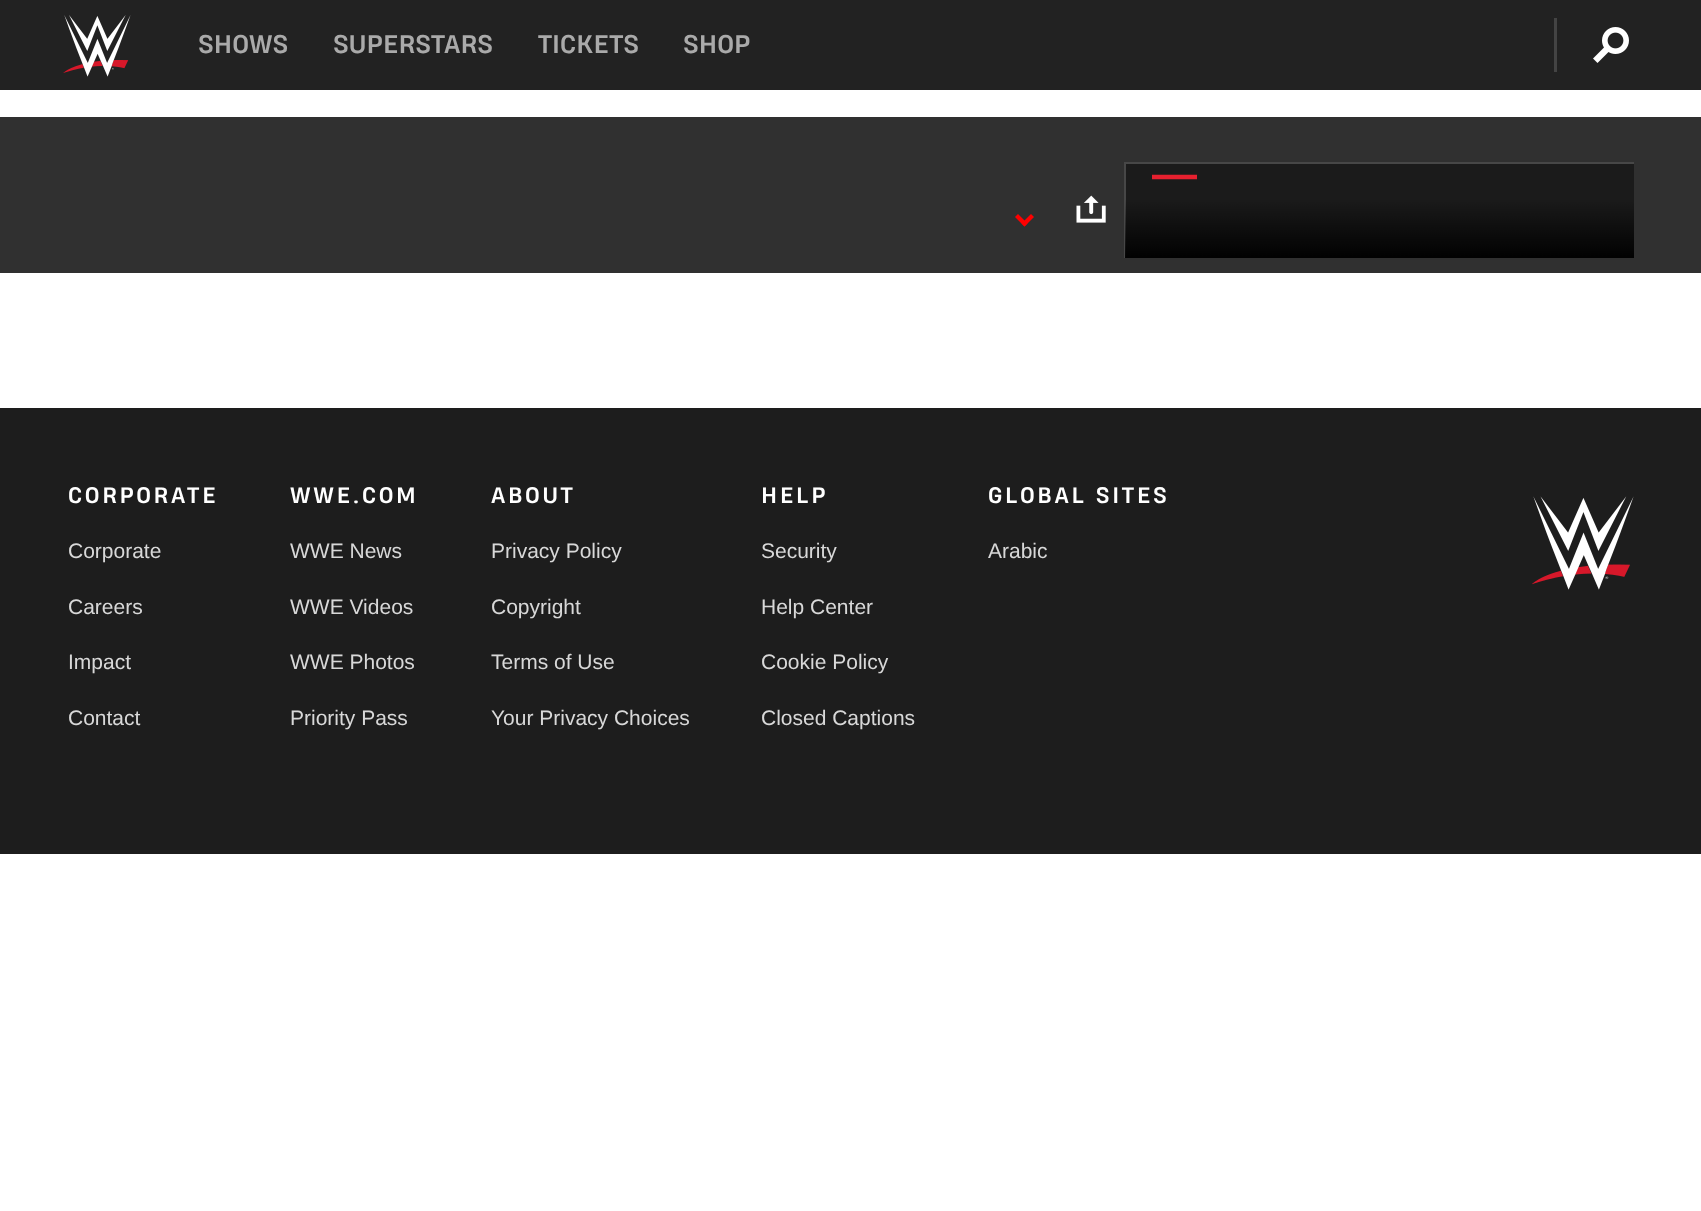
<?xml version="1.0" encoding="UTF-8"?>
<svg xmlns="http://www.w3.org/2000/svg" xmlns:xlink="http://www.w3.org/1999/xlink" width="1701" height="1211">
  <defs>
    <clipPath id="clip1"><rect x="1152" y="173" width="45" height="7" /></clipPath>
    <linearGradient id="g1" gradientUnits="userSpaceOnUse" x1="1379" y1="198" x2="1379" y2="258"><stop offset="0" stop-color="#000000" stop-opacity="0" /><stop offset="1" stop-color="#000000" stop-opacity="0.95" /></linearGradient>
  </defs>
  <rect width="100%" height="100%" fill="#ffffff" />
  <rect width="1701" height="90" fill="#222222" />
  <image x="63" y="15" width="68" height="62" xlink:href="image1.png" />
  <rect x="1554" y="18" width="3" height="54" fill="#444444" />
  <image x="1593" y="27" width="36" height="36" xlink:href="image2.png" />
  <rect y="117" width="1701" height="156" fill="#303030" />
  <path d="M 1031 214 l 3 3 l -9.5 9.5 l -3 -3 z" fill="#ff0000" />
  <path d="M 1018 214 l 9.5 9.5 l -3 3 l -9.5 -9.5 z" fill="#ff0000" />
  <image x="1076" y="195" width="30" height="28" xlink:href="image3.png" />
  <rect x="1126" y="164" width="508" height="94" fill="#1b1b1b" />
  <rect x="1124" y="162" width="2" height="96" fill="#474747" />
  <rect x="1125" y="162" width="509" height="2" fill="#474747" />
  <g clip-path="url(#clip1)">
    <path d="M 1082 177 h 135" fill="none" stroke="#e7202f" stroke-width="4.5" />
  </g>
  <rect x="1125" y="200" width="509" height="58" fill="url(#g1)" />
  <rect y="408" width="1701" height="446" fill="#1d1d1d" />
  <image x="1532" y="496" width="102" height="94" xlink:href="image4.png" />
  <text x="198" y="53" style="font-family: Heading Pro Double; font-size: 24px; font-weight: bold; fill: #aaaaaa">SHOWS</text>
  <text x="333" y="53" style="font-family: Heading Pro Double; font-size: 24px; font-weight: bold; fill: #aaaaaa">SUPERSTARS</text>
  <text x="538" y="53" style="font-family: Heading Pro Double; font-size: 24px; font-weight: bold; fill: #aaaaaa">TICKETS</text>
  <text x="683" y="53" style="font-family: Heading Pro Double; font-size: 24px; font-weight: bold; fill: #aaaaaa">SHOP</text>
  <text x="68" y="503" style="font-family: Heading Pro Double; font-size: 21px; font-weight: bold; letter-spacing: 2.6px; fill: #ffffff">CORPORATE</text>
  <text x="68" y="558" style="font-family: Liberation Sans; font-size: 21px; fill: #d8d8d8">Corporate</text>
  <text x="68" y="614" style="font-family: Liberation Sans; font-size: 21px; fill: #d8d8d8">Careers</text>
  <text x="68" y="669" style="font-family: Liberation Sans; font-size: 21px; fill: #d8d8d8">Impact</text>
  <text x="68" y="725" style="font-family: Liberation Sans; font-size: 21px; fill: #d8d8d8">Contact</text>
  <text x="290" y="503" style="font-family: Heading Pro Double; font-size: 21px; font-weight: bold; letter-spacing: 2.6px; fill: #ffffff">WWE.COM</text>
  <text x="290" y="558" style="font-family: Liberation Sans; font-size: 21px; fill: #d8d8d8">WWE News</text>
  <text x="290" y="614" style="font-family: Liberation Sans; font-size: 21px; fill: #d8d8d8">WWE Videos</text>
  <text x="290" y="669" style="font-family: Liberation Sans; font-size: 21px; fill: #d8d8d8">WWE Photos</text>
  <text x="290" y="725" style="font-family: Liberation Sans; font-size: 21px; fill: #d8d8d8">Priority Pass</text>
  <text x="491" y="503" style="font-family: Heading Pro Double; font-size: 21px; font-weight: bold; letter-spacing: 2.6px; fill: #ffffff">ABOUT</text>
  <text x="491" y="558" style="font-family: Liberation Sans; font-size: 21px; fill: #d8d8d8">Privacy Policy</text>
  <text x="491" y="614" style="font-family: Liberation Sans; font-size: 21px; fill: #d8d8d8">Copyright</text>
  <text x="491" y="669" style="font-family: Liberation Sans; font-size: 21px; fill: #d8d8d8">Terms of Use</text>
  <text x="491" y="725" style="font-family: Liberation Sans; font-size: 21px; fill: #d8d8d8">Your Privacy Choices</text>
  <text x="761" y="503" style="font-family: Heading Pro Double; font-size: 21px; font-weight: bold; letter-spacing: 2.6px; fill: #ffffff">HELP</text>
  <text x="761" y="558" style="font-family: Liberation Sans; font-size: 21px; fill: #d8d8d8">Security</text>
  <text x="761" y="614" style="font-family: Liberation Sans; font-size: 21px; fill: #d8d8d8">Help Center</text>
  <text x="761" y="669" style="font-family: Liberation Sans; font-size: 21px; fill: #d8d8d8">Cookie Policy</text>
  <text x="761" y="725" style="font-family: Liberation Sans; font-size: 21px; fill: #d8d8d8">Closed Captions</text>
  <text x="988" y="503" style="font-family: Heading Pro Double; font-size: 21px; font-weight: bold; letter-spacing: 2.6px; fill: #ffffff">GLOBAL SITES</text>
  <text x="988" y="558" style="font-family: Liberation Sans; font-size: 21px; fill: #d8d8d8">Arabic</text>
</svg>
